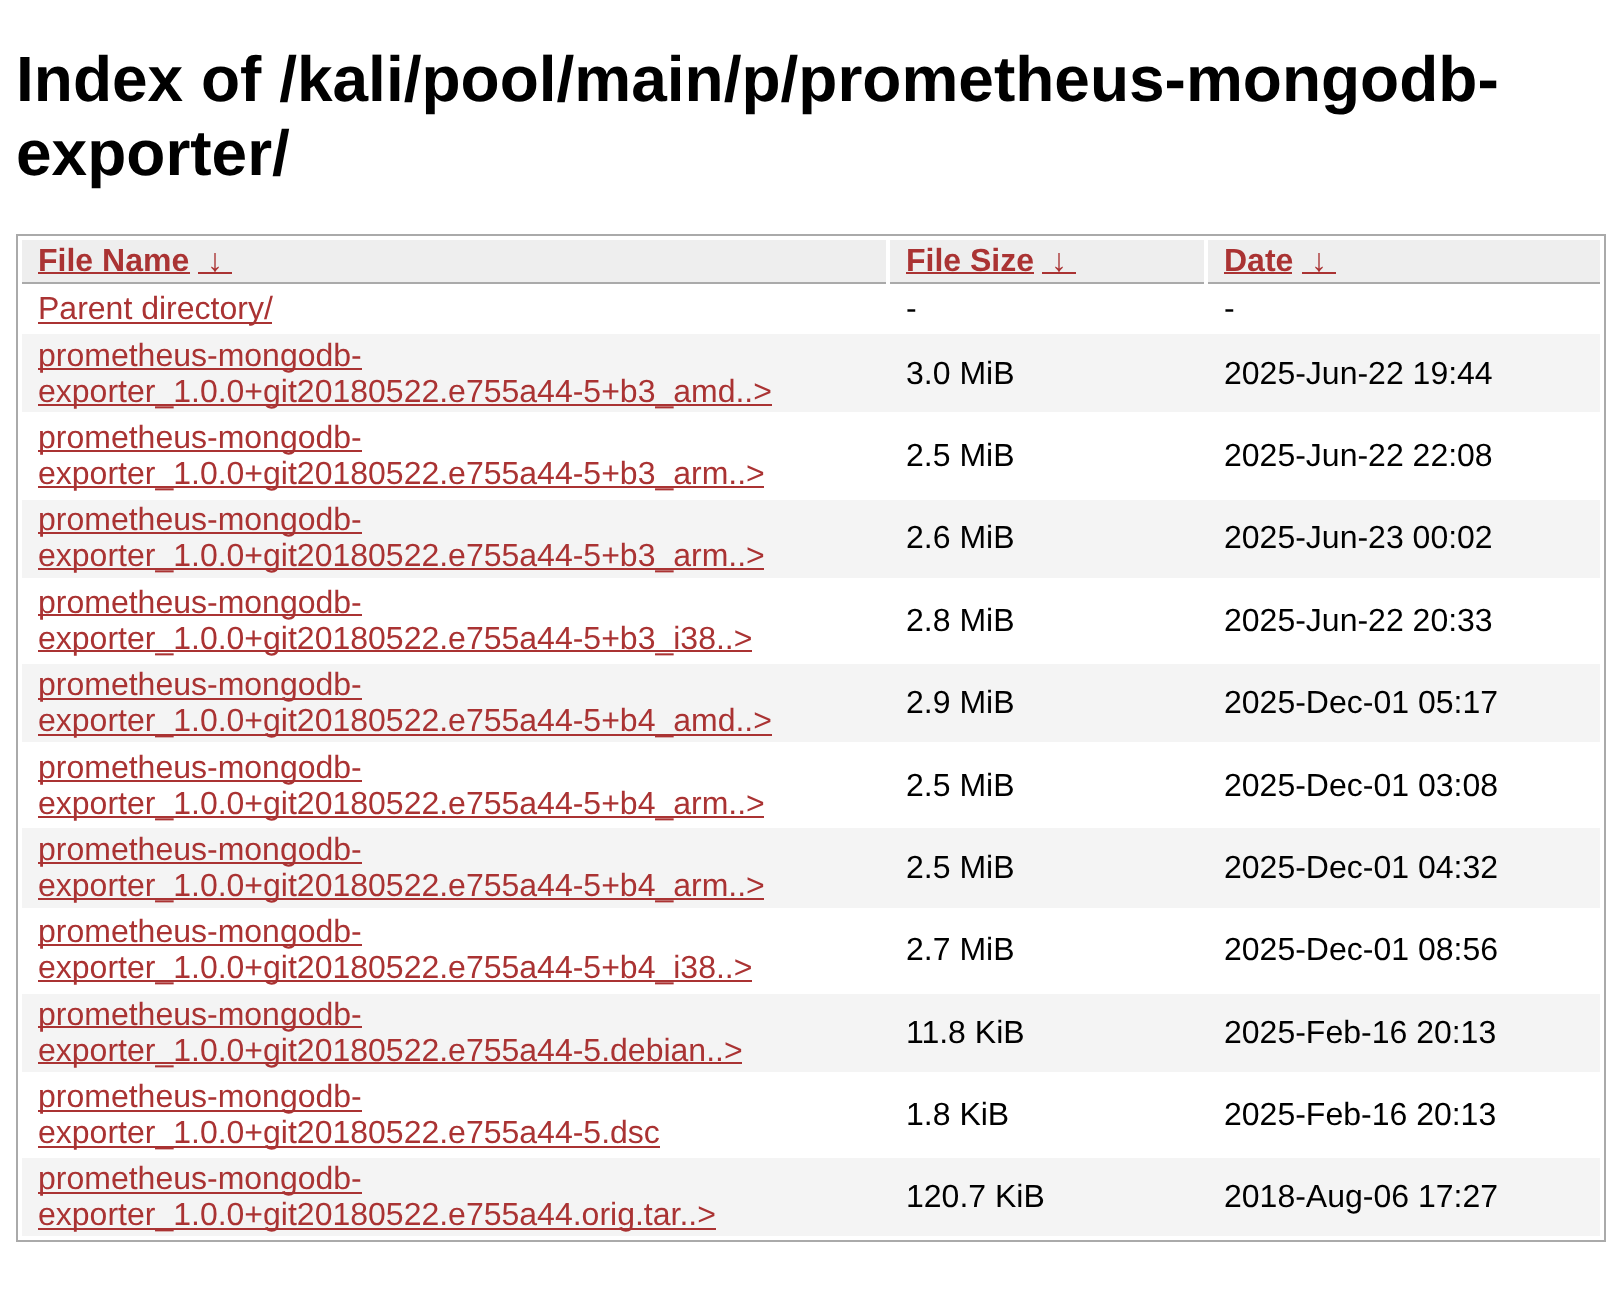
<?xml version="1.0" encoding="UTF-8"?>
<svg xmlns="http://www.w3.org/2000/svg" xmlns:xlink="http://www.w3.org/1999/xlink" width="1622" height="1313">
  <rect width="100%" height="100%" fill="#ffffff" />
  <rect x="17" y="235" width="1588" height="1006" fill="none" stroke="#aaaaaa" stroke-width="2" />
  <rect x="22" y="240" width="864" height="42" fill="#eeeeee" />
  <rect x="22" y="282" width="864" height="2" fill="#aaaaaa" />
  <rect x="38" y="272" width="152" height="2" fill="#aa3333" />
  <rect x="198" y="272" width="34" height="2" fill="#aa3333" />
  <rect x="890" y="240" width="314" height="42" fill="#eeeeee" />
  <rect x="890" y="282" width="314" height="2" fill="#aaaaaa" />
  <rect x="906" y="272" width="128" height="2" fill="#aa3333" />
  <rect x="1042" y="272" width="34" height="2" fill="#aa3333" />
  <rect x="1208" y="240" width="392" height="42" fill="#eeeeee" />
  <rect x="1208" y="282" width="392" height="2" fill="#aaaaaa" />
  <rect x="1224" y="272" width="68" height="2" fill="#aa3333" />
  <rect x="1302" y="272" width="34" height="2" fill="#aa3333" />
  <rect x="38" y="322" width="234" height="2" fill="#aa3333" />
  <rect x="22" y="334" width="1578" height="78" fill="#f4f4f4" />
  <rect x="38" y="368" width="324" height="2" fill="#aa3333" />
  <rect x="38" y="404" width="734" height="2" fill="#aa3333" />
  <rect x="38" y="450" width="324" height="2" fill="#aa3333" />
  <rect x="38" y="486" width="726" height="2" fill="#aa3333" />
  <rect x="22" y="500" width="1578" height="78" fill="#f4f4f4" />
  <rect x="38" y="532" width="324" height="2" fill="#aa3333" />
  <rect x="38" y="568" width="726" height="2" fill="#aa3333" />
  <rect x="38" y="614" width="324" height="2" fill="#aa3333" />
  <rect x="38" y="650" width="714" height="2" fill="#aa3333" />
  <rect x="22" y="664" width="1578" height="78" fill="#f4f4f4" />
  <rect x="38" y="698" width="324" height="2" fill="#aa3333" />
  <rect x="38" y="734" width="734" height="2" fill="#aa3333" />
  <rect x="38" y="780" width="324" height="2" fill="#aa3333" />
  <rect x="38" y="816" width="726" height="2" fill="#aa3333" />
  <rect x="22" y="828" width="1578" height="80" fill="#f4f4f4" />
  <rect x="38" y="862" width="324" height="2" fill="#aa3333" />
  <rect x="38" y="898" width="726" height="2" fill="#aa3333" />
  <rect x="38" y="944" width="324" height="2" fill="#aa3333" />
  <rect x="38" y="980" width="714" height="2" fill="#aa3333" />
  <rect x="22" y="994" width="1578" height="78" fill="#f4f4f4" />
  <rect x="38" y="1026" width="324" height="2" fill="#aa3333" />
  <rect x="38" y="1062" width="704" height="2" fill="#aa3333" />
  <rect x="38" y="1110" width="324" height="2" fill="#aa3333" />
  <rect x="38" y="1146" width="622" height="2" fill="#aa3333" />
  <rect x="22" y="1158" width="1578" height="78" fill="#f4f4f4" />
  <rect x="38" y="1192" width="324" height="2" fill="#aa3333" />
  <rect x="38" y="1228" width="678" height="2" fill="#aa3333" />
  <text x="16" y="101" style="font-family: Liberation Sans; font-size: 64px; font-weight: bold; fill: #000000">Index of /kali/pool/main/p/prometheus-mongodb-</text>
  <text x="16" y="175" style="font-family: Liberation Sans; font-size: 64px; font-weight: bold; fill: #000000">exporter/</text>
  <text x="38" y="271" style="font-family: Liberation Sans; font-size: 32px; font-weight: bold; fill: #aa3333">File Name</text>
  <text x="207" y="271" style="font-family: Liberation Sans; font-size: 32px; font-weight: bold; fill: #aa3333">↓</text>
  <text x="906" y="271" style="font-family: Liberation Sans; font-size: 32px; font-weight: bold; fill: #aa3333">File Size</text>
  <text x="1051" y="271" style="font-family: Liberation Sans; font-size: 32px; font-weight: bold; fill: #aa3333">↓</text>
  <text x="1224" y="271" style="font-family: Liberation Sans; font-size: 32px; font-weight: bold; fill: #aa3333">Date</text>
  <text x="1311" y="271" style="font-family: Liberation Sans; font-size: 32px; font-weight: bold; fill: #aa3333">↓</text>
  <text x="38" y="319" style="font-family: Liberation Sans; font-size: 32px; fill: #aa3333">Parent directory/</text>
  <text x="906" y="319" style="font-family: Liberation Sans; font-size: 32px; fill: #000000">-</text>
  <text x="1224" y="319" style="font-family: Liberation Sans; font-size: 32px; fill: #000000">-</text>
  <text x="38" y="366" style="font-family: Liberation Sans; font-size: 32px; fill: #aa3333">prometheus-mongodb-</text>
  <text x="38" y="402" style="font-family: Liberation Sans; font-size: 32px; fill: #aa3333">exporter_1.0.0+git20180522.e755a44-5+b3_amd..&gt;</text>
  <text x="906" y="384" style="font-family: Liberation Sans; font-size: 32px; fill: #000000">3.0 MiB</text>
  <text x="1224" y="384" style="font-family: Liberation Sans; font-size: 32px; fill: #000000">2025-Jun-22 19:44</text>
  <text x="38" y="448" style="font-family: Liberation Sans; font-size: 32px; fill: #aa3333">prometheus-mongodb-</text>
  <text x="38" y="484" style="font-family: Liberation Sans; font-size: 32px; fill: #aa3333">exporter_1.0.0+git20180522.e755a44-5+b3_arm..&gt;</text>
  <text x="906" y="466" style="font-family: Liberation Sans; font-size: 32px; fill: #000000">2.5 MiB</text>
  <text x="1224" y="466" style="font-family: Liberation Sans; font-size: 32px; fill: #000000">2025-Jun-22 22:08</text>
  <text x="38" y="530" style="font-family: Liberation Sans; font-size: 32px; fill: #aa3333">prometheus-mongodb-</text>
  <text x="38" y="566" style="font-family: Liberation Sans; font-size: 32px; fill: #aa3333">exporter_1.0.0+git20180522.e755a44-5+b3_arm..&gt;</text>
  <text x="906" y="548" style="font-family: Liberation Sans; font-size: 32px; fill: #000000">2.6 MiB</text>
  <text x="1224" y="548" style="font-family: Liberation Sans; font-size: 32px; fill: #000000">2025-Jun-23 00:02</text>
  <text x="38" y="613" style="font-family: Liberation Sans; font-size: 32px; fill: #aa3333">prometheus-mongodb-</text>
  <text x="38" y="649" style="font-family: Liberation Sans; font-size: 32px; fill: #aa3333">exporter_1.0.0+git20180522.e755a44-5+b3_i38..&gt;</text>
  <text x="906" y="631" style="font-family: Liberation Sans; font-size: 32px; fill: #000000">2.8 MiB</text>
  <text x="1224" y="631" style="font-family: Liberation Sans; font-size: 32px; fill: #000000">2025-Jun-22 20:33</text>
  <text x="38" y="695" style="font-family: Liberation Sans; font-size: 32px; fill: #aa3333">prometheus-mongodb-</text>
  <text x="38" y="731" style="font-family: Liberation Sans; font-size: 32px; fill: #aa3333">exporter_1.0.0+git20180522.e755a44-5+b4_amd..&gt;</text>
  <text x="906" y="713" style="font-family: Liberation Sans; font-size: 32px; fill: #000000">2.9 MiB</text>
  <text x="1224" y="713" style="font-family: Liberation Sans; font-size: 32px; fill: #000000">2025-Dec-01 05:17</text>
  <text x="38" y="778" style="font-family: Liberation Sans; font-size: 32px; fill: #aa3333">prometheus-mongodb-</text>
  <text x="38" y="814" style="font-family: Liberation Sans; font-size: 32px; fill: #aa3333">exporter_1.0.0+git20180522.e755a44-5+b4_arm..&gt;</text>
  <text x="906" y="796" style="font-family: Liberation Sans; font-size: 32px; fill: #000000">2.5 MiB</text>
  <text x="1224" y="796" style="font-family: Liberation Sans; font-size: 32px; fill: #000000">2025-Dec-01 03:08</text>
  <text x="38" y="860" style="font-family: Liberation Sans; font-size: 32px; fill: #aa3333">prometheus-mongodb-</text>
  <text x="38" y="896" style="font-family: Liberation Sans; font-size: 32px; fill: #aa3333">exporter_1.0.0+git20180522.e755a44-5+b4_arm..&gt;</text>
  <text x="906" y="878" style="font-family: Liberation Sans; font-size: 32px; fill: #000000">2.5 MiB</text>
  <text x="1224" y="878" style="font-family: Liberation Sans; font-size: 32px; fill: #000000">2025-Dec-01 04:32</text>
  <text x="38" y="942" style="font-family: Liberation Sans; font-size: 32px; fill: #aa3333">prometheus-mongodb-</text>
  <text x="38" y="978" style="font-family: Liberation Sans; font-size: 32px; fill: #aa3333">exporter_1.0.0+git20180522.e755a44-5+b4_i38..&gt;</text>
  <text x="906" y="960" style="font-family: Liberation Sans; font-size: 32px; fill: #000000">2.7 MiB</text>
  <text x="1224" y="960" style="font-family: Liberation Sans; font-size: 32px; fill: #000000">2025-Dec-01 08:56</text>
  <text x="38" y="1025" style="font-family: Liberation Sans; font-size: 32px; fill: #aa3333">prometheus-mongodb-</text>
  <text x="38" y="1061" style="font-family: Liberation Sans; font-size: 32px; fill: #aa3333">exporter_1.0.0+git20180522.e755a44-5.debian..&gt;</text>
  <text x="906" y="1043" style="font-family: Liberation Sans; font-size: 32px; fill: #000000">11.8 KiB</text>
  <text x="1224" y="1043" style="font-family: Liberation Sans; font-size: 32px; fill: #000000">2025-Feb-16 20:13</text>
  <text x="38" y="1107" style="font-family: Liberation Sans; font-size: 32px; fill: #aa3333">prometheus-mongodb-</text>
  <text x="38" y="1143" style="font-family: Liberation Sans; font-size: 32px; fill: #aa3333">exporter_1.0.0+git20180522.e755a44-5.dsc</text>
  <text x="906" y="1125" style="font-family: Liberation Sans; font-size: 32px; fill: #000000">1.8 KiB</text>
  <text x="1224" y="1125" style="font-family: Liberation Sans; font-size: 32px; fill: #000000">2025-Feb-16 20:13</text>
  <text x="38" y="1189" style="font-family: Liberation Sans; font-size: 32px; fill: #aa3333">prometheus-mongodb-</text>
  <text x="38" y="1225" style="font-family: Liberation Sans; font-size: 32px; fill: #aa3333">exporter_1.0.0+git20180522.e755a44.orig.tar..&gt;</text>
  <text x="906" y="1207" style="font-family: Liberation Sans; font-size: 32px; fill: #000000">120.7 KiB</text>
  <text x="1224" y="1207" style="font-family: Liberation Sans; font-size: 32px; fill: #000000">2018-Aug-06 17:27</text>
</svg>
